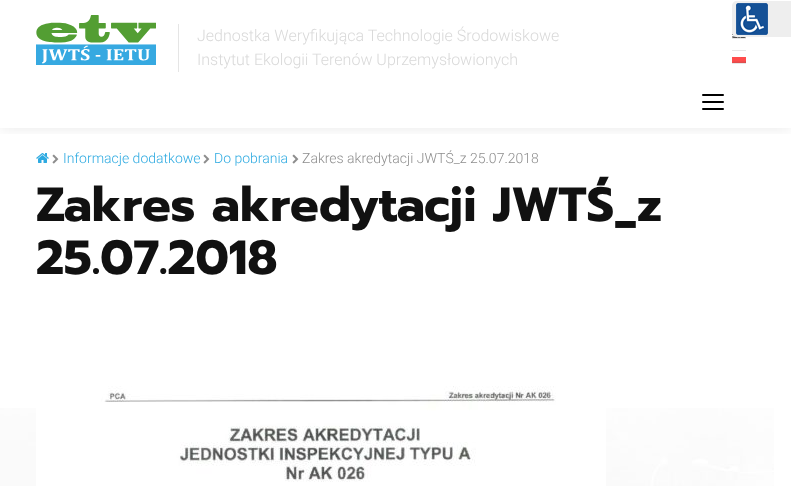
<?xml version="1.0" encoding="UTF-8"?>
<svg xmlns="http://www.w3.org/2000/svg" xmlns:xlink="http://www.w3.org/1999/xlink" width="791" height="486">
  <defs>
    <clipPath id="clip1"><rect x="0" y="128" width="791" height="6" /></clipPath>
    <clipPath id="clip2"><rect x="732" y="25" width="14" height="14" /></clipPath>
    <clipPath id="clip3"><rect x="732" y="50" width="14" height="14" /></clipPath>
  </defs>
  <rect width="100%" height="100%" fill="#ffffff" />
  <g clip-path="url(#clip1)">
    <rect width="791" height="128" fill="#000000" fill-opacity="0.09" filter="blur(7.5px)" />
  </g>
  <g clip-path="url(#clip2)">
    <rect x="729.5" y="25.5" width="19" height="13" fill="none" stroke="#e7e7e7" />
  </g>
  <image x="732" y="32" width="14" height="6" xlink:href="image4.png" />
  <path d="M 737 1 h 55 v 36 h -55 c -3 0 -5 -2 -5 -5 v -26 c 0 -3 2 -5 5 -5 z" fill="#eeeeee" />
  <image x="736" y="3" width="32" height="32" xlink:href="image1.png" />
  <image x="0" y="408" width="774" height="78" xlink:href="image2.png" />
  <image x="36" y="15" width="120" height="50" xlink:href="image3.png" />
  <rect x="178" y="24" width="1" height="48" fill="#e5e5e5" />
  <g clip-path="url(#clip3)">
    <rect x="729.5" y="50.5" width="19" height="13" fill="none" stroke="#e7e7e7" />
  </g>
  <image x="732" y="57" width="14" height="6" xlink:href="image5.png" />
  <rect x="702" y="94" width="22" height="2" rx="1" fill="#000000" />
  <rect x="702" y="101" width="22" height="2" rx="1" fill="#000000" />
  <rect x="702" y="108" width="22" height="2" rx="1" fill="#000000" />
  <image x="36" y="153" width="13" height="10" xlink:href="image6.png" />
  <image x="52" y="154" width="7" height="10" xlink:href="image7.png" />
  <image x="203" y="154" width="7" height="10" xlink:href="image7.png" />
  <image x="292" y="154" width="7" height="10" xlink:href="image7.png" />
  <image x="36" y="386" width="570" height="100" xlink:href="image8.png" />
  <text x="197" y="41" style="font-family: Roboto; font-size: 16px; font-weight: 300; fill: #d9d9d9">Jednostka Weryfikująca Technologie Środowiskowe</text>
  <text x="197" y="65" style="font-family: Roboto; font-size: 16px; font-weight: 300; fill: #d9d9d9">Instytut Ekologii Terenów Uprzemysłowionych</text>
  <text x="63" y="163" style="font-family: Roboto; font-size: 14px; font-weight: 300; fill: #2daae1">Informacje dodatkowe</text>
  <text x="214" y="163" style="font-family: Roboto; font-size: 14px; font-weight: 300; fill: #2daae1">Do pobrania</text>
  <text x="302" y="163" style="font-family: Roboto; font-size: 14px; font-weight: 300; fill: #8d8d8d">Zakres akredytacji JWTŚ_z 25.07.2018</text>
  <text x="36" y="221" style="font-family: Prompt; font-size: 48px; font-weight: bold; fill: #111111">Zakres akredytacji JWTŚ_z</text>
  <text x="36" y="274" style="font-family: Prompt; font-size: 48px; font-weight: bold; fill: #111111">25.07.2018</text>
</svg>
